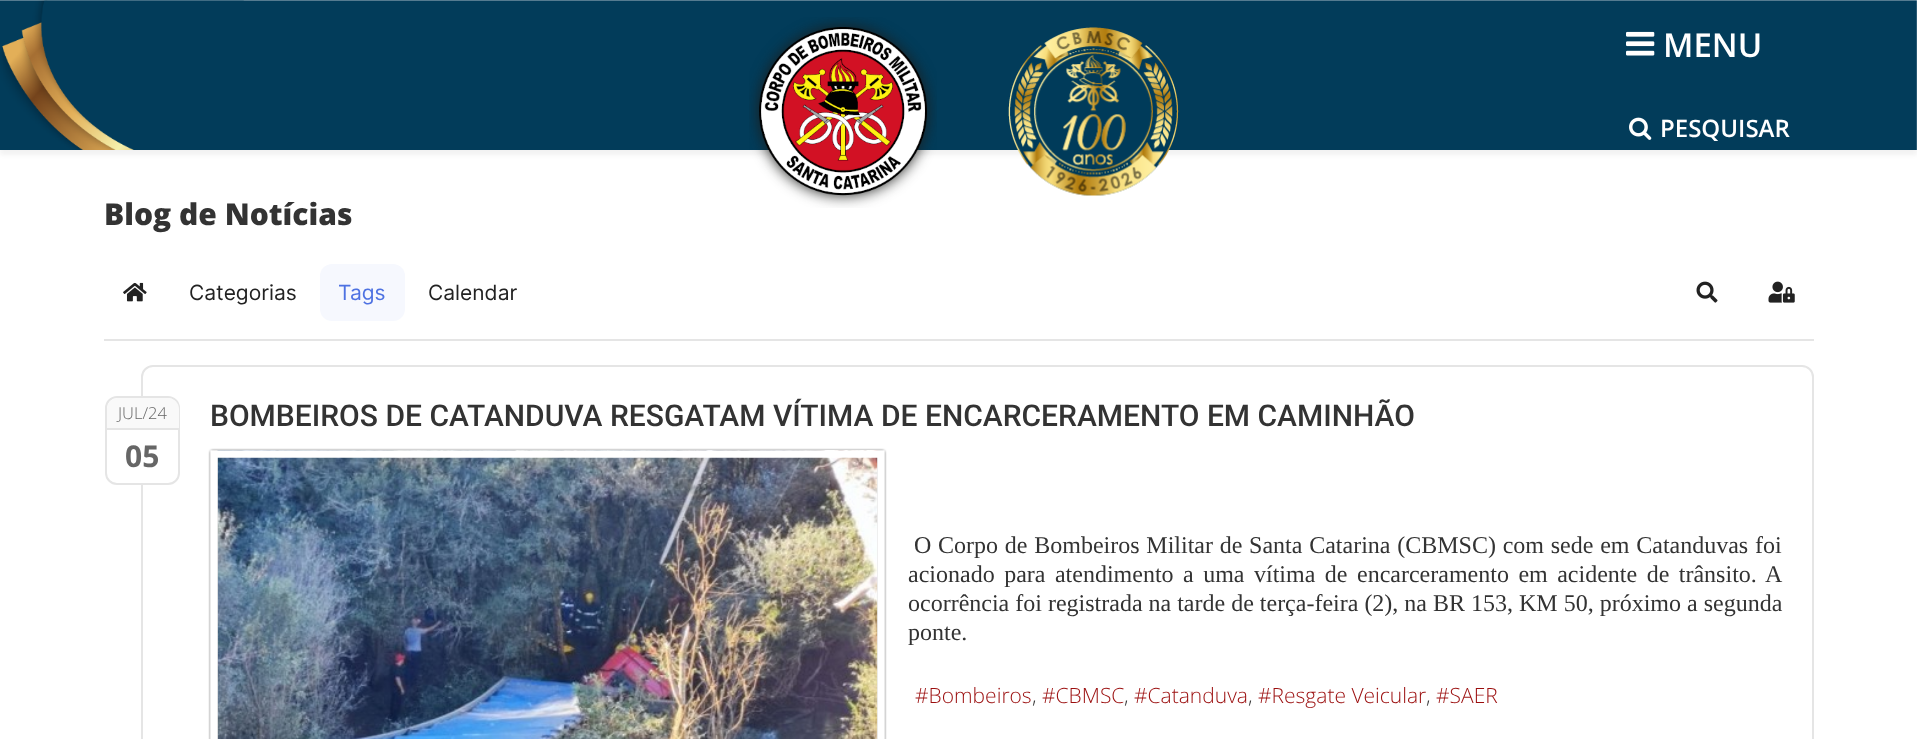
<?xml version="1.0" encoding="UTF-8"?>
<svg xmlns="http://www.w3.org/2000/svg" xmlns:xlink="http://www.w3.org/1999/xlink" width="1917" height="739">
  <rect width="100%" height="100%" fill="#ffffff" />
  <rect y="5" width="1917" height="150" fill="#000000" fill-opacity="0.05" filter="blur(2px)" />
  <image x="0" y="0" width="1917" height="150" xlink:href="image1.png" />
  <image x="749" y="17" width="188" height="191" xlink:href="image2.png" />
  <image x="1008" y="27" width="171" height="169" xlink:href="image3.png" />
  <image x="1626" y="31" width="29" height="25" xlink:href="image4.png" />
  <image x="1629" y="117" width="23" height="23" xlink:href="image5.png" />
  <image x="123" y="282" width="24" height="20" xlink:href="image6.png" />
  <rect x="320" y="264" width="85" height="57" rx="12" fill="#f6f8fe" />
  <image x="1696" y="281" width="22" height="22" xlink:href="image7.png" />
  <image x="1768" y="281" width="27" height="22" xlink:href="image8.png" />
  <rect x="104" y="339" width="1710" height="2" fill="#e5e5e5" />
  <rect x="142" y="366" width="1671" height="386" rx="11" fill="none" stroke="#e5e5e5" stroke-width="2" />
  <rect x="106" y="397" width="73" height="87" rx="11" fill="#ffffff" stroke="#e5e5e5" stroke-width="2" />
  <path d="M 118 398 h 50 c 6 0 11 5 11 11 v 20 h -72 v -20 c 0 -6 5 -11 11 -11 z" fill="#f9f9f9" />
  <rect x="107" y="428" width="72" height="2" fill="#e5e5e5" />
  <rect x="210" y="450" width="675" height="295" rx="3" fill="#000000" fill-opacity="0.5" filter="blur(1px)" />
  <image x="217" y="450" width="661" height="289" xlink:href="image9.png" />
  <path d="M 214 454 h 667 v 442 h -667 z" fill="none" stroke="#ffffff" stroke-width="7.5" />
  <text x="1663" y="57" style="font-family: Open Sans; font-size: 33px; font-weight: 600; fill: #ffffff">MENU</text>
  <text x="1660" y="137" style="font-family: Open Sans; font-size: 24px; font-weight: 600; fill: #ffffff">PESQUISAR</text>
  <text x="104" y="225" style="font-family: Open Sans; font-size: 30px; font-weight: 800; fill: #333333">Blog de Notícias</text>
  <text x="189" y="300" style="font-family: Inter; font-size: 21px; fill: #222222">Categorias</text>
  <text x="338" y="300" style="font-family: Inter; font-size: 21px; fill: #4e72e2">Tags</text>
  <text x="428" y="300" style="font-family: Inter; font-size: 21px; fill: #222222">Calendar</text>
  <text x="118" y="419" style="font-family: Open Sans; font-size: 16.5px; font-weight: 300; fill: #666666">JUL/24</text>
  <text x="125" y="467" style="font-family: Open Sans; font-size: 30px; font-weight: bold; fill: #666666">05</text>
  <text x="210" y="426" style="font-family: Roboto; font-size: 30px; font-weight: 500; fill: #333333">BOMBEIROS DE CATANDUVA RESGATAM VÍTIMA DE ENCARCERAMENTO EM CAMINHÃO</text>
  <text x="914" y="553" word-spacing="0.75" style="font-family: Liberation Serif; font-size: 24px; fill: #333333">O Corpo de Bombeiros Militar de Santa Catarina (CBMSC) com sede em Catanduvas foi</text>
  <text x="908" y="582" word-spacing="3.5" style="font-family: Liberation Serif; font-size: 24px; fill: #333333">acionado para atendimento a uma vítima de encarceramento em acidente de trânsito. A</text>
  <text x="908" y="611" style="font-family: Liberation Serif; font-size: 24px; fill: #333333">ocorrência foi registrada na tarde de terça-feira (2), na BR 153, KM 50, próximo a segunda</text>
  <text x="908" y="640" style="font-family: Liberation Serif; font-size: 24px; fill: #333333">ponte.</text>
  <text x="915" y="703" style="font-family: Open Sans; font-size: 21px; font-weight: 300; fill: #9b0e0e">#Bombeiros</text>
  <text x="1032" y="703" style="font-family: Open Sans; font-size: 21px; font-weight: 300; fill: #333333">,</text>
  <text x="1042" y="703" style="font-family: Open Sans; font-size: 21px; font-weight: 300; fill: #9b0e0e">#CBMSC</text>
  <text x="1124" y="703" style="font-family: Open Sans; font-size: 21px; font-weight: 300; fill: #333333">,</text>
  <text x="1134" y="703" style="font-family: Open Sans; font-size: 21px; font-weight: 300; fill: #9b0e0e">#Catanduva</text>
  <text x="1248" y="703" style="font-family: Open Sans; font-size: 21px; font-weight: 300; fill: #333333">,</text>
  <text x="1258" y="703" style="font-family: Open Sans; font-size: 21px; font-weight: 300; fill: #9b0e0e">#Resgate Veicular</text>
  <text x="1426" y="703" style="font-family: Open Sans; font-size: 21px; font-weight: 300; fill: #333333">,</text>
  <text x="1436" y="703" style="font-family: Open Sans; font-size: 21px; font-weight: 300; fill: #9b0e0e">#SAER</text>
</svg>
